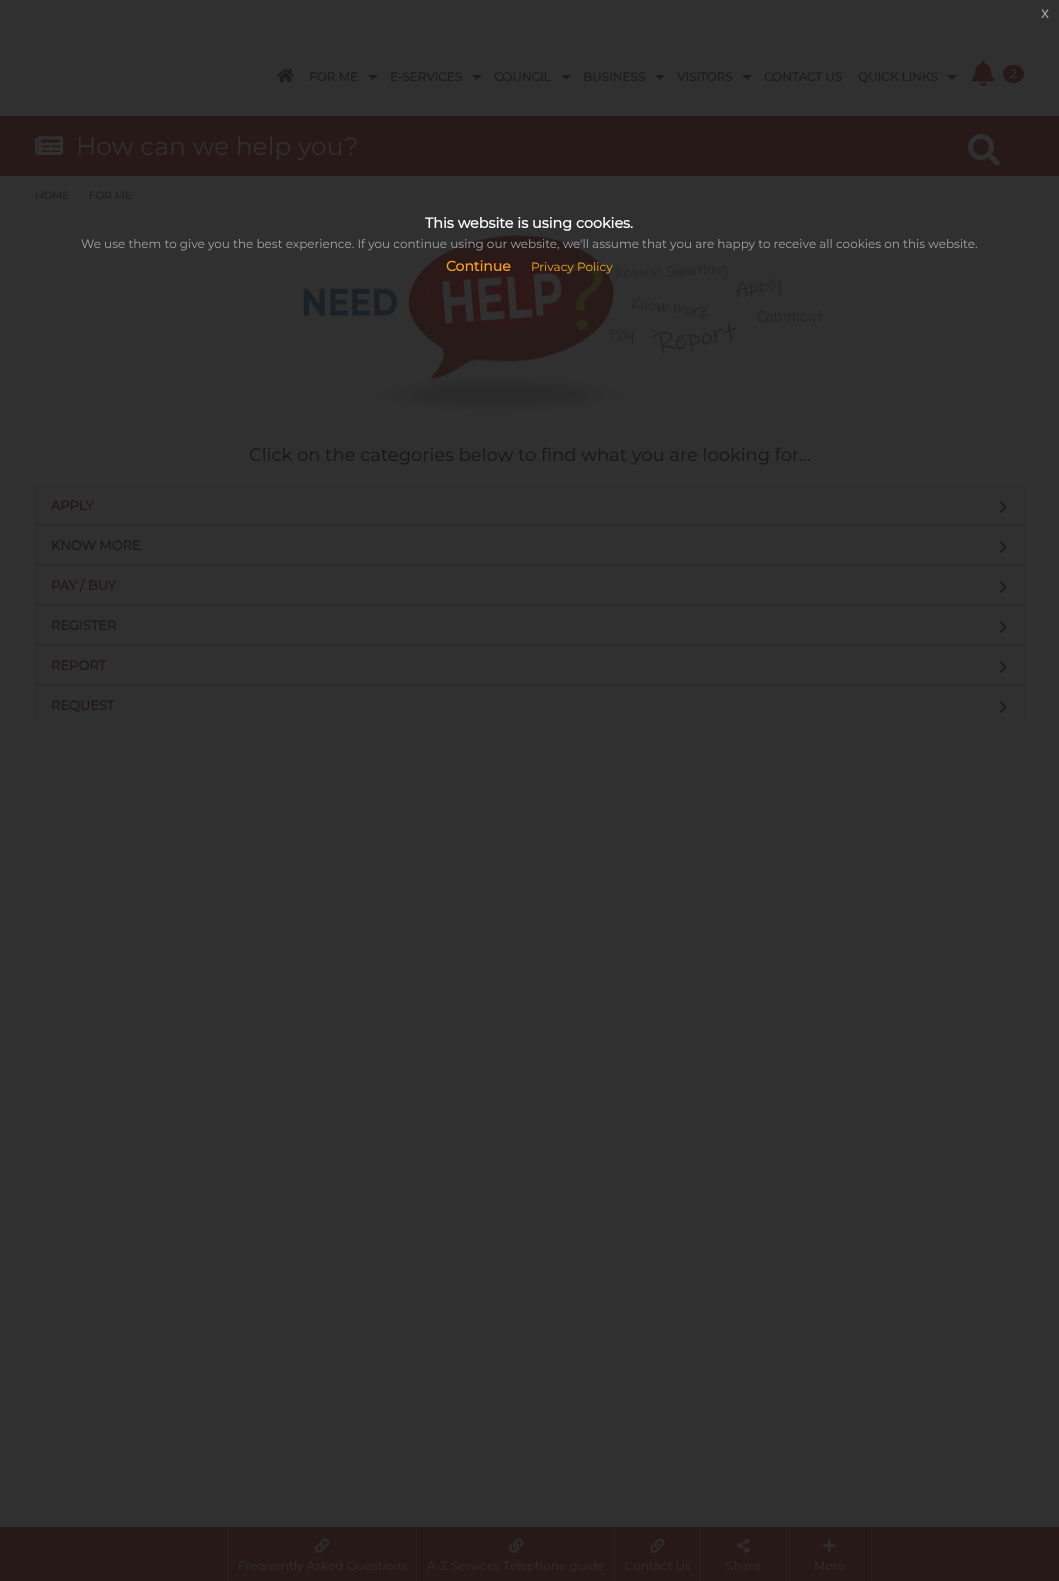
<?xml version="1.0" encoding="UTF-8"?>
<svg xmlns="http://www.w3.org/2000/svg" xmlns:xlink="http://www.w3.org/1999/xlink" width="1059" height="1581">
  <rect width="100%" height="100%" fill="#303030" />
  <image x="277" y="68" width="17" height="14" xlink:href="image1.png" />
  <path d="M 368 75 h 10 l -5 5 z" fill="#1c1c1d" />
  <path d="M 472 75 h 10 l -5 5 z" fill="#1c1c1d" />
  <path d="M 561 75 h 10 l -5 5 z" fill="#1c1c1d" />
  <path d="M 655 75 h 10 l -5 5 z" fill="#1c1c1d" />
  <path d="M 742 75 h 10 l -5 5 z" fill="#1c1c1d" />
  <path d="M 947 75 h 10 l -5 5 z" fill="#1c1c1d" />
  <image x="972" y="60" width="23" height="27" xlink:href="image2.png" />
  <rect x="1003" y="65" width="21" height="18" rx="9" fill="#281919" />
  <rect y="116" width="1059" height="60" fill="#281919" />
  <image x="35" y="136" width="29" height="19" xlink:href="image3.png" />
  <image x="968" y="134" width="32" height="32" xlink:href="image4.png" />
  <image x="303" y="235" width="522" height="177" xlink:href="image5.png" />
  <rect x="35" y="524" width="990" height="163" fill="#2d2d2d" />
  <rect x="35.5" y="486.5" width="989" height="37" fill="none" stroke="#2d2d2d" />
  <image x="999" y="501" width="8" height="12" xlink:href="image6.png" />
  <rect x="36" y="527" width="988" height="36" fill="#303030" />
  <image x="999" y="541" width="8" height="12" xlink:href="image6.png" />
  <rect x="36" y="567" width="988" height="36" fill="#303030" />
  <image x="999" y="581" width="8" height="12" xlink:href="image6.png" />
  <rect x="36" y="607" width="988" height="36" fill="#303030" />
  <image x="999" y="621" width="8" height="12" xlink:href="image6.png" />
  <rect x="36" y="647" width="988" height="36" fill="#303030" />
  <image x="999" y="661" width="8" height="12" xlink:href="image6.png" />
  <rect x="1024" y="686" width="1" height="37" fill="#2d2d2d" />
  <rect x="35" y="686" width="1" height="37" fill="#2d2d2d" />
  <image x="999" y="701" width="8" height="12" xlink:href="image6.png" />
  <rect y="1527" width="1059" height="54" fill="#281919" />
  <rect x="416" y="1527" width="1" height="54" fill="#2b2020" />
  <rect x="227" y="1527" width="1" height="54" fill="#2b2020" />
  <image x="315" y="1538" width="15" height="15" xlink:href="image7.png" />
  <rect x="614" y="1527" width="1" height="54" fill="#2b2020" />
  <image x="509" y="1538" width="15" height="15" xlink:href="image7.png" />
  <rect x="700" y="1527" width="1" height="54" fill="#2b2020" />
  <image x="650" y="1538" width="15" height="15" xlink:href="image7.png" />
  <rect x="786" y="1527" width="1" height="54" fill="#2b2020" />
  <image x="737" y="1538" width="13" height="15" xlink:href="image8.png" />
  <rect x="871" y="1527" width="1" height="54" fill="#2b2020" />
  <image x="823" y="1539" width="13" height="13" xlink:href="image9.png" />
  <text x="1041" y="18" style="font-family: Liberation Sans; font-size: 16px; fill: #a2a2a2">x</text>
  <text x="425" y="228" style="font-family: Montserrat; font-size: 14.4px; font-weight: bold; fill: #ffffff">This website is using cookies.</text>
  <text x="81" y="248" style="font-family: Montserrat; font-size: 12px; font-weight: 100; fill: #a2a2a2">We use them to give you the best experience. If you continue using our website, we'll assume that you are happy to receive all cookies on this website.</text>
  <text x="446" y="271" style="font-family: Montserrat; font-size: 14px; font-weight: bold; fill: #f6a21d">Continue</text>
  <text x="531" y="271" style="font-family: Montserrat; font-size: 12px; font-weight: 100; fill: #f6a21d">Privacy Policy</text>
  <text x="309" y="81" style="font-family: Montserrat; font-size: 12px; font-weight: bold; fill: #1c1c1d">FOR ME</text>
  <text x="390" y="81" style="font-family: Montserrat; font-size: 12px; font-weight: bold; fill: #1c1c1d">E-SERVICES</text>
  <text x="494" y="81" style="font-family: Montserrat; font-size: 12px; font-weight: bold; fill: #1c1c1d">COUNCIL</text>
  <text x="583" y="81" style="font-family: Montserrat; font-size: 12px; font-weight: bold; fill: #1c1c1d">BUSINESS</text>
  <text x="677" y="81" style="font-family: Montserrat; font-size: 12px; font-weight: bold; fill: #1c1c1d">VISITORS</text>
  <text x="764" y="81" style="font-family: Montserrat; font-size: 12px; font-weight: bold; fill: #1c1c1d">CONTACT US</text>
  <text x="858" y="81" style="font-family: Montserrat; font-size: 12px; font-weight: bold; fill: #1c1c1d">QUICK LINKS</text>
  <text x="1010" y="78" style="font-family: Montserrat; font-size: 12px; font-weight: bold; fill: #303030">2</text>
  <text x="76" y="155" style="font-family: Montserrat; font-size: 25px; font-weight: 100; fill: #303030">How can we help you?</text>
  <text x="35" y="199" style="font-family: Montserrat; font-size: 10.5px; font-weight: 100; fill: #1f1717">HOME</text>
  <text x="89" y="199" style="font-family: Montserrat; font-size: 10.5px; font-weight: 100; fill: #1f1717">FOR ME</text>
  <text x="249" y="461" style="font-family: Montserrat; font-size: 18px; font-weight: 100; fill: #171717">Click on the categories below to find what you are looking for...</text>
  <text x="51" y="510" style="font-family: Montserrat; font-size: 13px; font-weight: bold; fill: #1f1717">APPLY</text>
  <text x="51" y="550" style="font-family: Montserrat; font-size: 13px; font-weight: bold; fill: #1f1717">KNOW MORE</text>
  <text x="51" y="590" style="font-family: Montserrat; font-size: 13px; font-weight: bold; fill: #1f1717">PAY / BUY</text>
  <text x="51" y="630" style="font-family: Montserrat; font-size: 13px; font-weight: bold; fill: #1f1717">REGISTER</text>
  <text x="51" y="670" style="font-family: Montserrat; font-size: 13px; font-weight: bold; fill: #1f1717">REPORT</text>
  <text x="51" y="710" style="font-family: Montserrat; font-size: 13px; font-weight: bold; fill: #1f1717">REQUEST</text>
  <text x="238" y="1570" style="font-family: Montserrat; font-size: 12px; font-weight: 100; fill: #303030">Frequently Asked Questions</text>
  <text x="427" y="1570" style="font-family: Montserrat; font-size: 12px; font-weight: 100; fill: #303030">A-Z Services Telephone guide</text>
  <text x="625" y="1570" style="font-family: Montserrat; font-size: 12px; font-weight: 100; fill: #303030">Contact Us</text>
  <text x="726" y="1570" style="font-family: Montserrat; font-size: 12px; font-weight: 100; fill: #303030">Share</text>
  <text x="814" y="1570" style="font-family: Montserrat; font-size: 12px; font-weight: 100; fill: #303030">More</text>
</svg>
